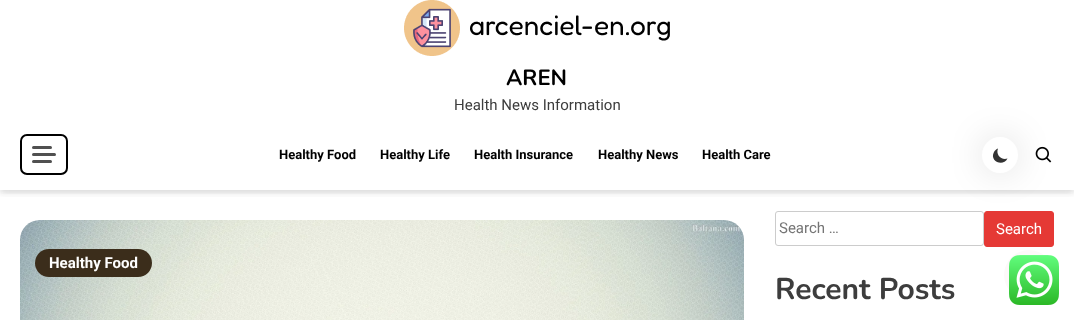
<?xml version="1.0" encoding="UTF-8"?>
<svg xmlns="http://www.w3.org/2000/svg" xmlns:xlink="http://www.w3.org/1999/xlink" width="1074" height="320">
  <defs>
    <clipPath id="clip1"><rect x="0" y="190" width="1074" height="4" /></clipPath>
    <clipPath id="clip2"><rect x="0" y="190" width="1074" height="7" /></clipPath>
  </defs>
  <rect width="100%" height="100%" fill="#ffffff" />
  <g clip-path="url(#clip1)">
    <rect width="1074" height="190" fill="#000000" fill-opacity="0.1" filter="blur(5px)" />
  </g>
  <image x="404" y="0" width="266" height="56" xlink:href="image1.png" />
  <g clip-path="url(#clip2)">
    <rect y="123" width="1074" height="71" fill="#353535" fill-opacity="0.1" filter="blur(3px)" />
  </g>
  <rect x="21" y="135" width="46" height="39" rx="6" fill="none" stroke="#000000" stroke-width="2" />
  <rect x="32" y="146" width="20" height="3" rx="1.5" fill="#505050" />
  <rect x="32" y="153" width="24" height="3" rx="1.5" fill="#505050" />
  <rect x="32" y="160" width="20" height="3" rx="1.5" fill="#505050" />
  <rect x="775.5" y="211.5" width="208" height="34" rx="2.5" fill="none" stroke="#cccccc" />
  <rect x="984.5" y="211.5" width="69" height="35" rx="2.5" fill="#e53935" stroke="#e53935" />
  <rect x="982" y="137" width="36" height="36" rx="18" fill="#000000" fill-opacity="0.13" filter="blur(17.5px)" />
  <circle cx="1000" cy="155" r="18" fill="#ffffff" />
  <path d="M 1007.5 158.5 c -6.5 2 -12 -4 -9.5 -10 c -1.5 0.5 -3.5 2 -4 3.5 c -5 9 9 15.5 13.5 6.5 z" fill="#333333" />
  <image x="1035" y="146" width="17" height="17" xlink:href="image2.png" />
  <image x="20" y="220" width="724" height="100" xlink:href="image3.png" />
  <rect x="35" y="249" width="117" height="28" rx="14" fill="#3b2d1b" />
  <circle cx="1029" cy="275" r="25" fill="#fcf9f9" />
  <image x="1009" y="255" width="50" height="50" xlink:href="image4.png" />
  <text x="506" y="85" style="font-family: Nunito; font-size: 22px; font-weight: 200; fill: #000000">AREN</text>
  <text x="454" y="110" style="font-family: Roboto; font-size: 15px; fill: #3d3d3d">Health News Information</text>
  <text x="279" y="159" style="font-family: Roboto; font-size: 13px; font-weight: bold; fill: #000000">Healthy Food</text>
  <text x="380" y="159" style="font-family: Roboto; font-size: 13px; font-weight: bold; fill: #000000">Healthy Life</text>
  <text x="474" y="159" style="font-family: Roboto; font-size: 13px; font-weight: bold; fill: #000000">Health Insurance</text>
  <text x="598" y="159" style="font-family: Roboto; font-size: 13px; font-weight: bold; fill: #000000">Healthy News</text>
  <text x="702" y="159" style="font-family: Roboto; font-size: 13px; font-weight: bold; fill: #000000">Health Care</text>
  <text x="49" y="268" style="font-family: Roboto; font-size: 15px; font-weight: bold; fill: #ffffff">Healthy Food</text>
  <text x="779" y="233" style="font-family: Roboto; font-size: 15px; fill: #757575">Search …</text>
  <text x="996" y="234" style="font-family: Roboto; font-size: 15px; fill: #ffffff">Search</text>
  <text x="775" y="299" style="font-family: Nunito; font-size: 30px; font-weight: 200; fill: #3d3d3d">Recent Posts</text>
</svg>
